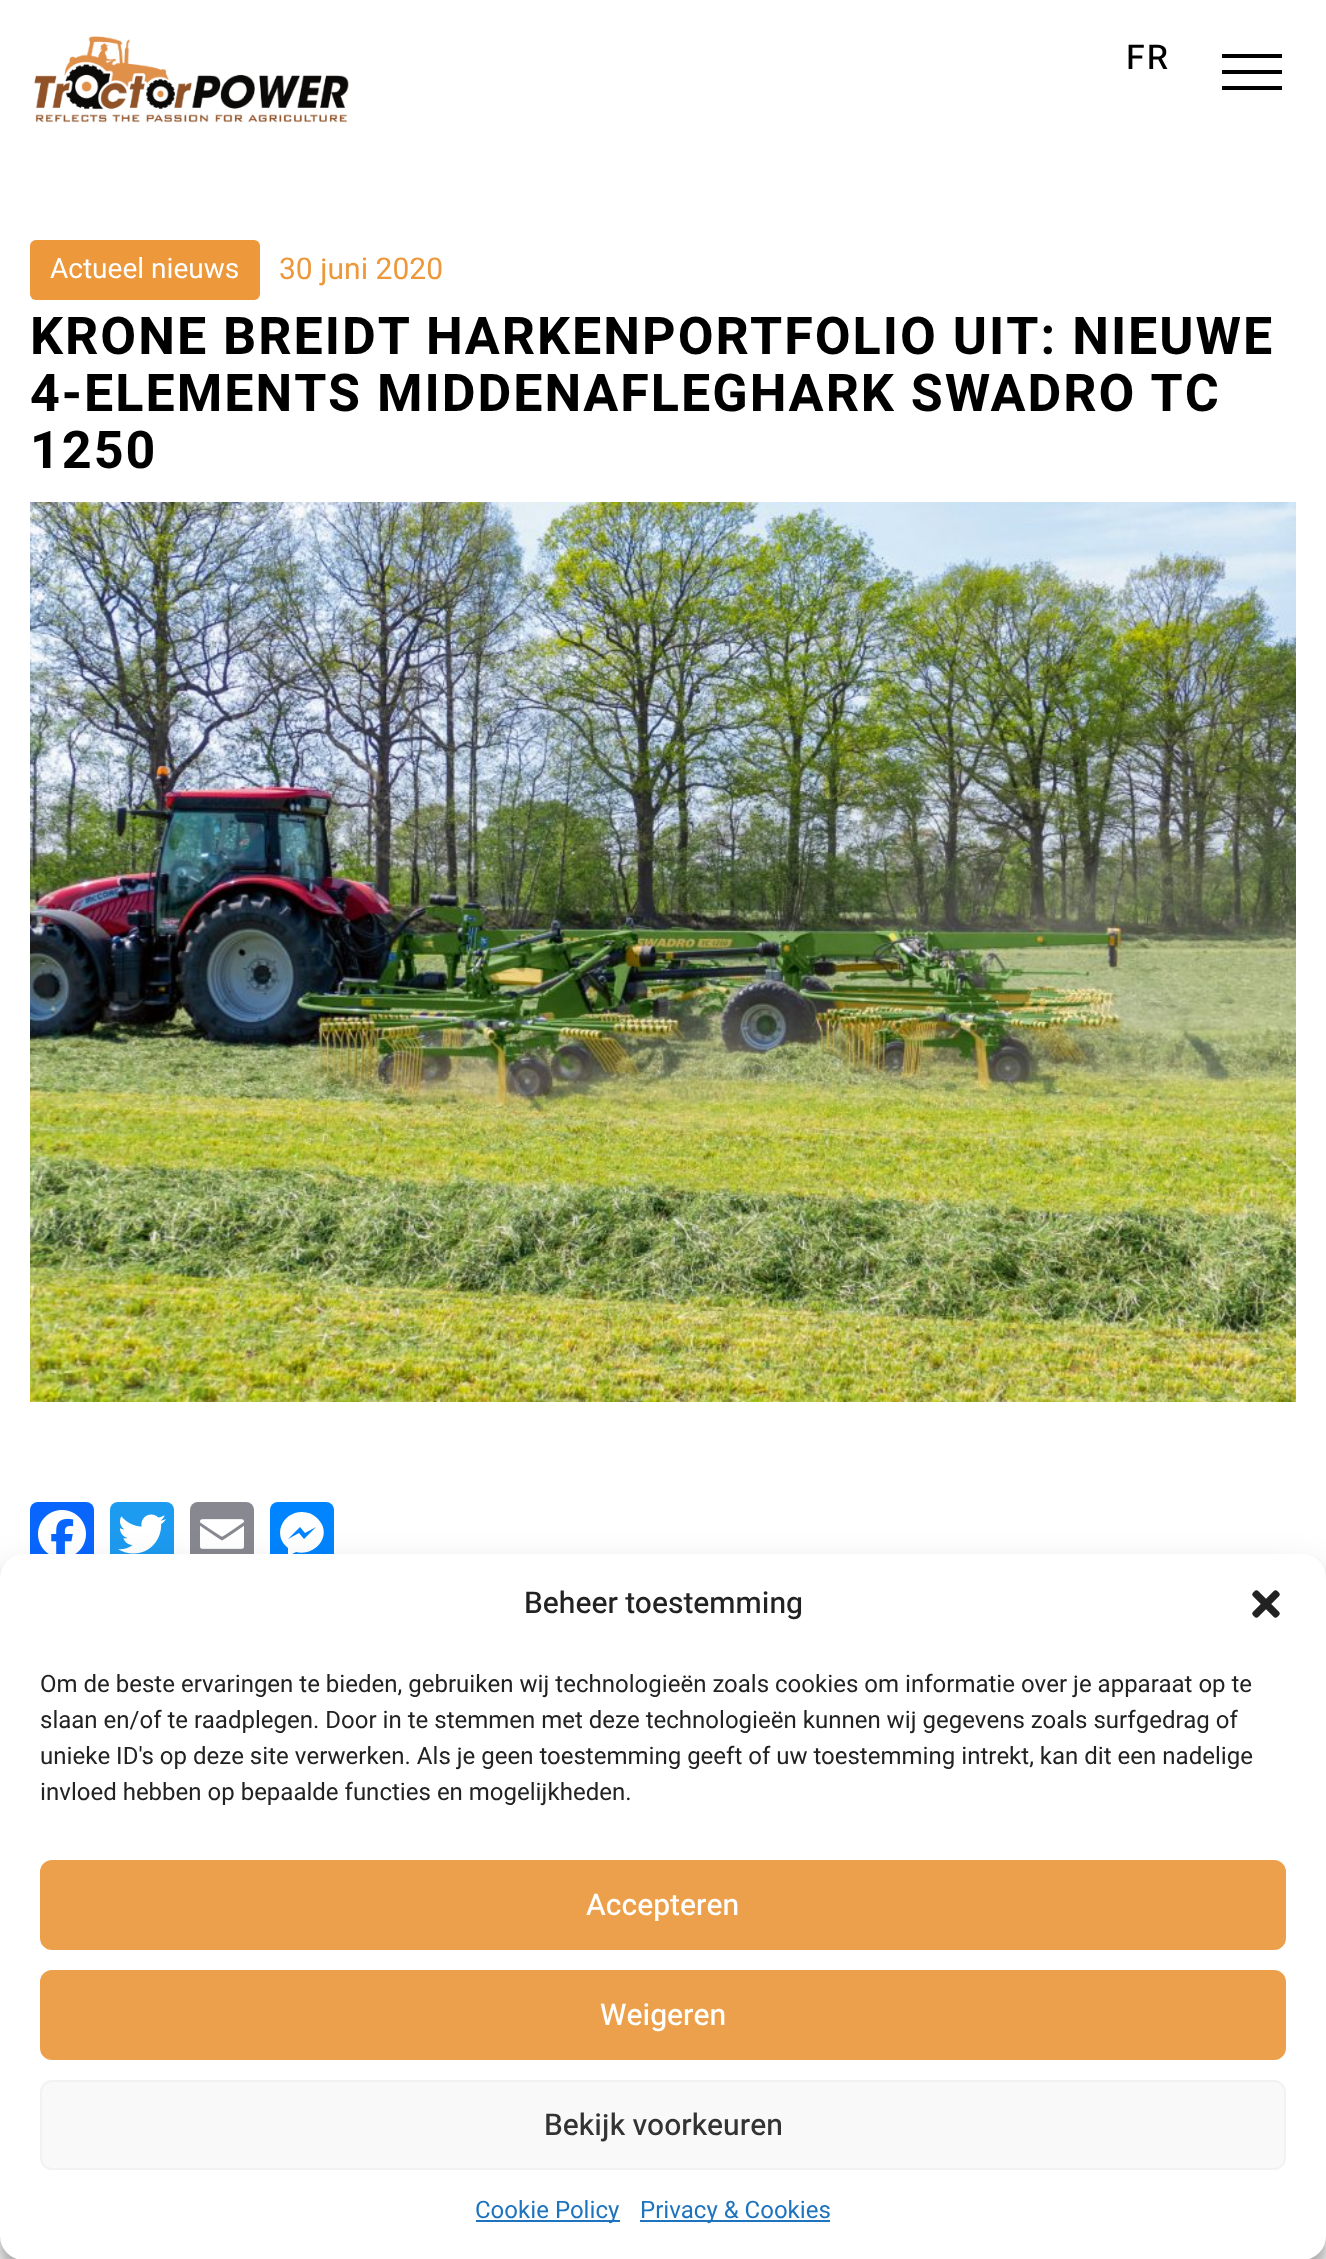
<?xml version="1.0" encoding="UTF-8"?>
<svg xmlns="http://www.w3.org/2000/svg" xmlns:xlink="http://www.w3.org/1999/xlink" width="1326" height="2259">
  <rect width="100%" height="100%" fill="#ffffff" />
  <image x="34" y="36" width="315" height="87" xlink:href="image1.png" />
  <rect x="1222" y="54" width="60" height="4" fill="#000000" />
  <rect x="1222" y="70" width="60" height="4" fill="#000000" />
  <rect x="1222" y="86" width="60" height="4" fill="#000000" />
  <rect x="30" y="240" width="230" height="60" rx="6" fill="#ec983b" />
  <image x="30" y="502" width="1266" height="900" xlink:href="image2.png" />
  <rect x="30" y="1502" width="64" height="64" rx="8" fill="#0866ff" />
  <image x="38" y="1510" width="48" height="44" xlink:href="image3.png" />
  <rect x="110" y="1502" width="64" height="64" rx="8" fill="#1d9bf0" />
  <image x="118" y="1514" width="48" height="40" xlink:href="image4.png" />
  <rect x="190" y="1502" width="64" height="64" rx="8" fill="#888990" />
  <image x="200" y="1519" width="44" height="30" xlink:href="image5.png" />
  <rect x="270" y="1502" width="64" height="64" rx="8" fill="#0084ff" />
  <path d="M 302 1512 c -20 0 -30 24 -14 36 v 8 l 8 -4 c 20 5 38 -18 21 -34 c -4 -4 -9 -6 -15 -6 m 2 27 l -5 -6 l -11 6 l 12 -12 l 5 6 l 11 -6 z" fill="#ffffff" />
  <rect y="1566" width="1326" height="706" rx="24" fill="#000000" fill-opacity="0.23" filter="blur(6px)" />
  <rect y="1574" width="1326" height="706" rx="24" fill="#000000" fill-opacity="0.19" filter="blur(20px)" />
  <rect y="1554" width="1326" height="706" rx="24" fill="#ffffff" />
  <image x="1252" y="1590" width="28" height="28" xlink:href="image6.png" />
  <rect x="41" y="1861" width="1244" height="88" rx="11" fill="#eda04b" stroke="#eda04b" stroke-width="2" />
  <rect x="41" y="1971" width="1244" height="88" rx="11" fill="#eda04b" stroke="#eda04b" stroke-width="2" />
  <rect x="41" y="2081" width="1244" height="88" rx="11" fill="#f9f9f9" stroke="#f2f2f2" stroke-width="2" />
  <rect x="476" y="2220" width="144" height="2" fill="#1e73be" />
  <rect x="640" y="2220" width="190" height="2" fill="#1e73be" />
  <text x="1126" y="69" style="font-family: Heebo; font-size: 34px; font-weight: 500; letter-spacing: 2px; fill: #000000">FR</text>
  <text x="50" y="278" style="font-family: Heebo; font-size: 28px; fill: #ffffff">Actueel nieuws</text>
  <text x="279" y="279" style="font-family: Heebo; font-size: 30px; fill: #ec983b">30 juni 2020</text>
  <text x="30" y="354" style="font-family: Heebo; font-size: 52px; font-weight: bold; letter-spacing: 2px; fill: #000000">KRONE BREIDT HARKENPORTFOLIO UIT: NIEUWE</text>
  <text x="30" y="411" style="font-family: Heebo; font-size: 52px; font-weight: bold; letter-spacing: 2px; fill: #000000">4-ELEMENTS MIDDENAFLEGHARK SWADRO TC</text>
  <text x="30" y="468" style="font-family: Heebo; font-size: 52px; font-weight: bold; letter-spacing: 2px; fill: #000000">1250</text>
  <text x="524" y="1613" style="font-family: Heebo; font-size: 30px; font-weight: 500; fill: #222222">Beheer toestemming</text>
  <text x="40" y="1692" style="font-family: Heebo; font-size: 24px; fill: #222222">Om de beste ervaringen te bieden, gebruiken wij technologieën zoals cookies om informatie over je apparaat op te</text>
  <text x="40" y="1728" style="font-family: Heebo; font-size: 24px; fill: #222222">slaan en/of te raadplegen. Door in te stemmen met deze technologieën kunnen wij gegevens zoals surfgedrag of</text>
  <text x="40" y="1764" style="font-family: Heebo; font-size: 24px; fill: #222222">unieke ID's op deze site verwerken. Als je geen toestemming geeft of uw toestemming intrekt, kan dit een nadelige</text>
  <text x="40" y="1800" style="font-family: Heebo; font-size: 24px; fill: #222222">invloed hebben op bepaalde functies en mogelijkheden.</text>
  <text x="586" y="1915" style="font-family: Heebo; font-size: 30px; font-weight: 500; fill: #ffffff">Accepteren</text>
  <text x="600" y="2025" style="font-family: Heebo; font-size: 30px; font-weight: 500; fill: #ffffff">Weigeren</text>
  <text x="544" y="2135" style="font-family: Heebo; font-size: 30px; font-weight: 500; fill: #333333">Bekijk voorkeuren</text>
  <text x="475" y="2218" style="font-family: Heebo; font-size: 24px; fill: #1e73be">Cookie Policy</text>
  <text x="640" y="2218" style="font-family: Heebo; font-size: 24px; fill: #1e73be">Privacy &amp; Cookies</text>
</svg>
